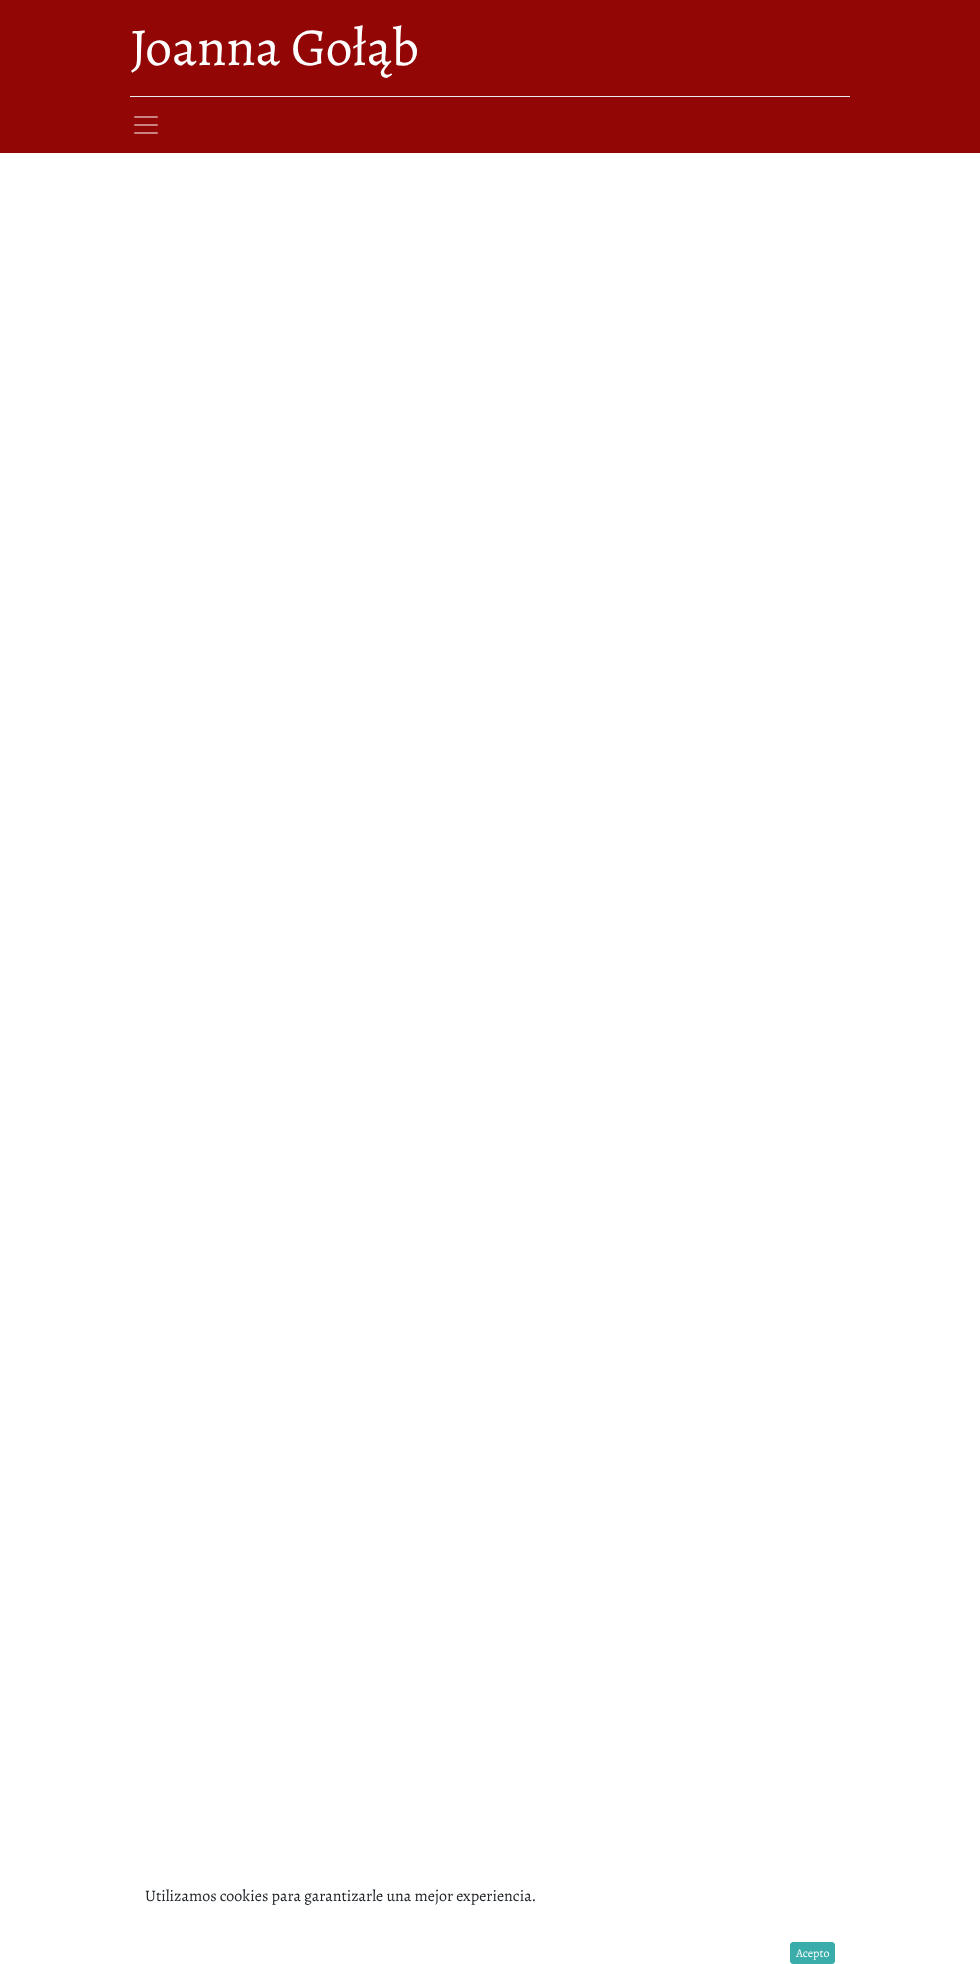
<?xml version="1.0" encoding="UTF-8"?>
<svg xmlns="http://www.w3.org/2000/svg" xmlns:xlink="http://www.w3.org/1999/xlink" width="980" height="1964">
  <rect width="100%" height="100%" fill="#ffffff" />
  <rect width="980" height="153" fill="#920606" />
  <rect x="130" y="96" width="720" height="1" fill="#e9ecef" />
  <image x="134" y="116" width="24" height="18" xlink:href="image1.png" />
  <rect x="790.5" y="1942.5" width="44" height="21" rx="2.5" fill="#3aadaa" stroke="#3aadaa" />
  <text x="130" y="65" style="font-family: Alegreya; font-size: 53.5px; fill: #ffffff">Joanna Gołąb</text>
  <text x="145" y="1901" style="font-family: Alegreya; font-size: 16px; fill: #212529">Utilizamos cookies para garantizarle una mejor experiencia.</text>
  <text x="796" y="1957" style="font-family: Alegreya; font-size: 12px; fill: #ffffff">Acepto</text>
</svg>
